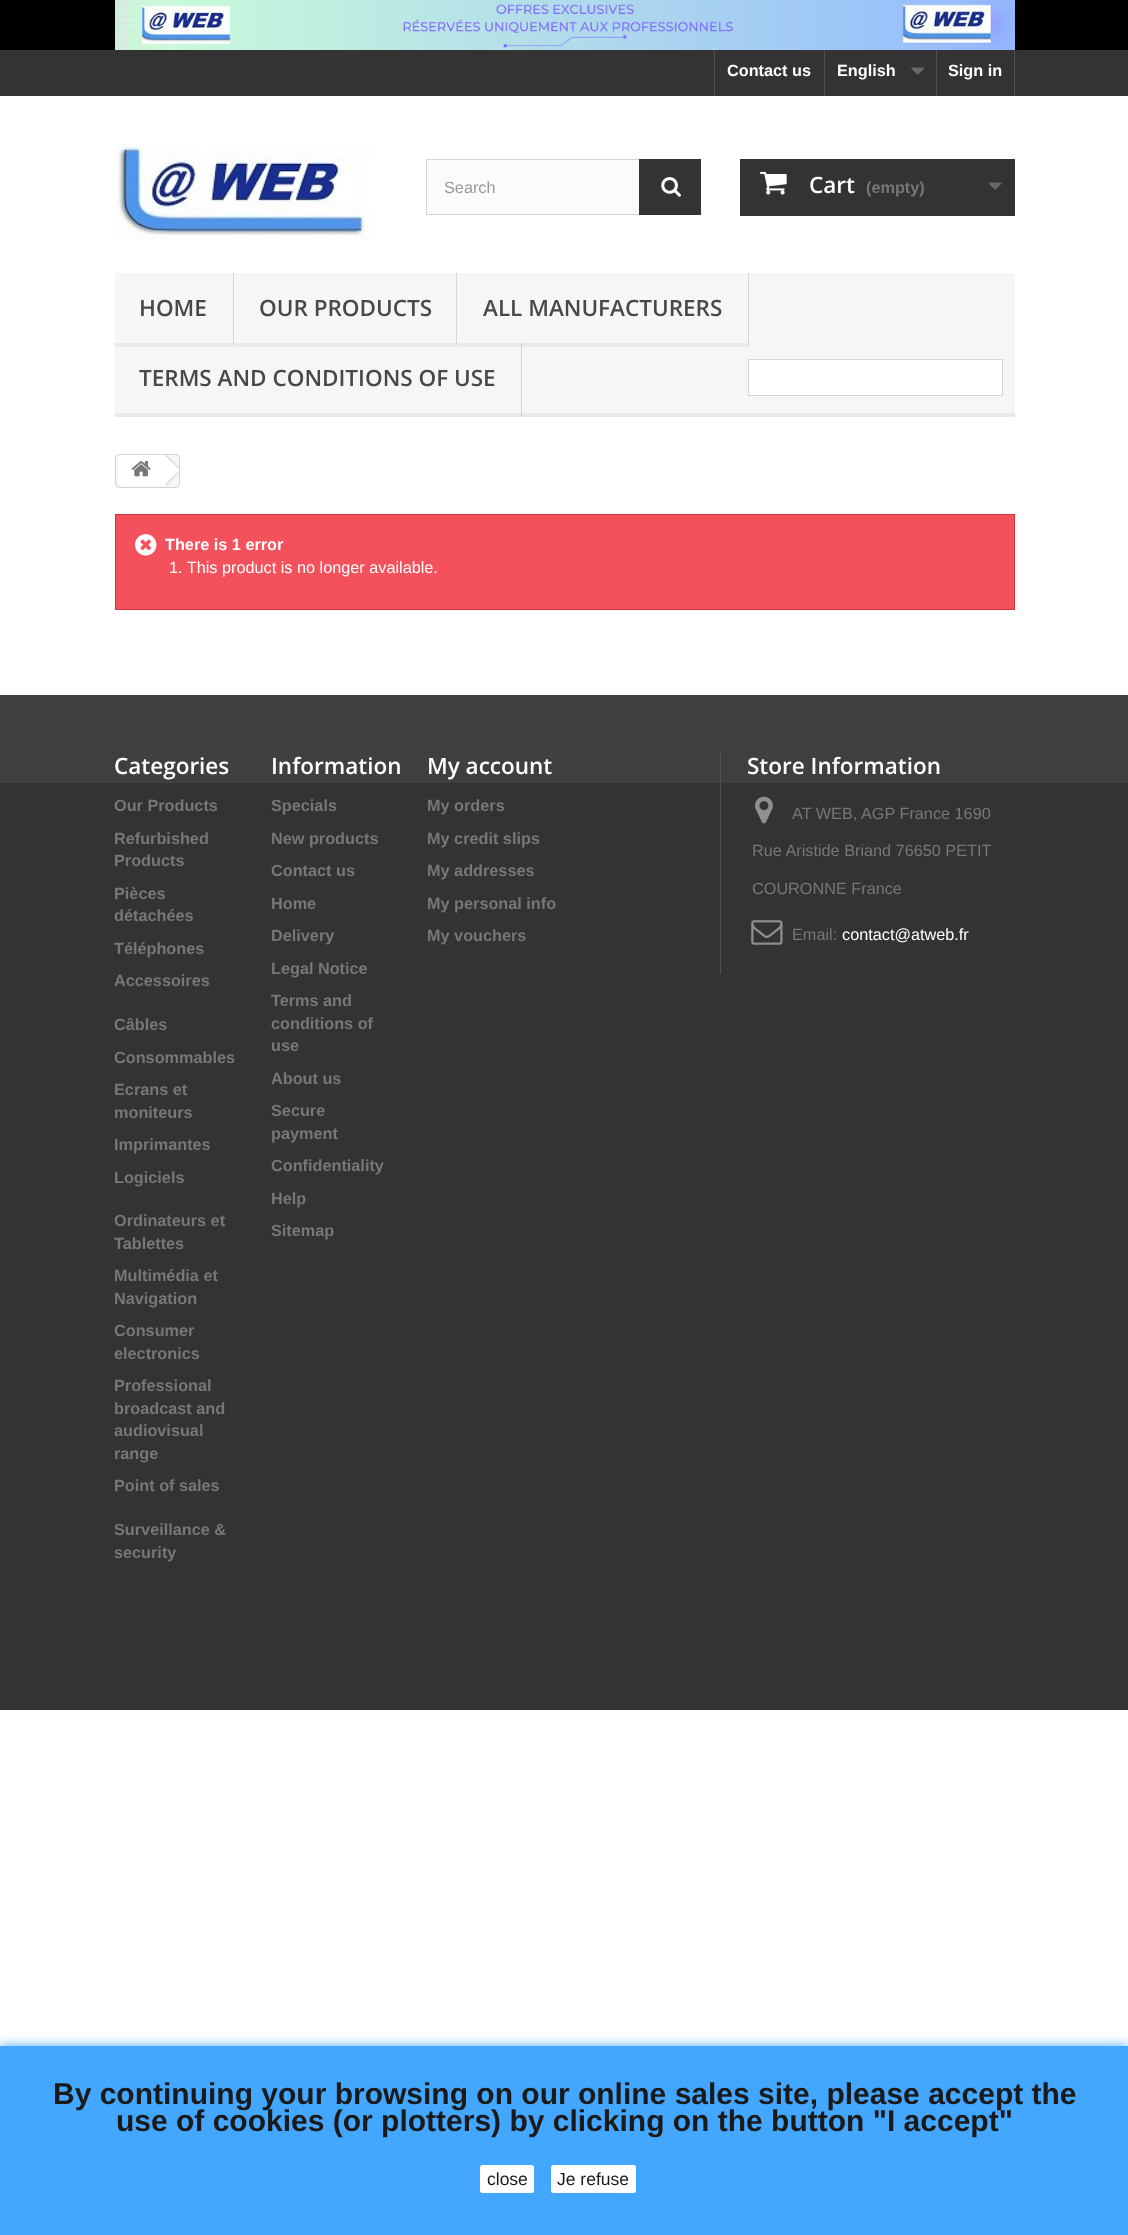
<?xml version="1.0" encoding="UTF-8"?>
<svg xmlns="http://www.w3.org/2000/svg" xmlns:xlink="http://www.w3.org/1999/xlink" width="1128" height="2235">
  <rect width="100%" height="100%" fill="#ffffff" />
  <rect width="1128" height="50" fill="#000000" />
  <image x="115" y="0" width="900" height="50" xlink:href="image1.png" />
  <rect y="50" width="1128" height="46" fill="#333333" />
  <rect x="714" y="50" width="1" height="46" fill="#515151" />
  <rect x="824" y="50" width="1" height="45" fill="#515151" />
  <image x="911" y="67" width="13" height="8" xlink:href="image2.png" />
  <rect x="1014" y="50" width="1" height="46" fill="#515151" />
  <rect x="936" y="50" width="1" height="46" fill="#515151" />
  <image x="115" y="146" width="258" height="95" xlink:href="image3.png" />
  <rect x="427" y="160" width="212" height="54" fill="#fbfbfb" />
  <rect x="426.5" y="159.5" width="274" height="55" fill="none" stroke="#d6d4d4" />
  <rect x="639" y="159" width="62" height="56" fill="#333333" />
  <image x="661" y="177" width="20" height="20" xlink:href="image4.png" />
  <rect x="740" y="159" width="275" height="57" fill="#333333" />
  <image x="760" y="171" width="27" height="24" xlink:href="image5.png" />
  <image x="988" y="182" width="14" height="8" xlink:href="image6.png" />
  <rect x="115" y="273" width="900" height="140" fill="#f6f6f6" />
  <rect x="115" y="413" width="900" height="4" fill="#e9e9e9" />
  <rect x="233" y="273" width="1" height="73" fill="#d6d4d4" />
  <rect x="115" y="343" width="118" height="4" fill="#e9e9e9" />
  <rect x="456" y="273" width="1" height="73" fill="#d6d4d4" />
  <rect x="234" y="343" width="222" height="4" fill="#e9e9e9" />
  <rect x="748" y="273" width="1" height="73" fill="#d6d4d4" />
  <rect x="458" y="343" width="290" height="4" fill="#e9e9e9" />
  <rect x="521" y="343" width="1" height="73" fill="#d6d4d4" />
  <rect x="748.5" y="359.5" width="254" height="36" fill="#ffffff" stroke="#d6d4d4" />
  <rect x="115.5" y="454.5" width="64" height="33" rx="3.5" fill="#f6f6f6" stroke="#d6d4d4" />
  <path d="M 122 455 h 43 v 31 h -43 c -2 0 -4 -2 -4 -4 v -23 c 0 -2 2 -4 4 -4 z" fill="#ffffff" />
  <path d="M 167.5 456 l 11.5 11 v 6 l -11.5 11 c -1 1 -2.5 1 -3.5 0 l -12.5 -12 c -1 -1 -1 -3 0 -4 l 12.5 -12 c 1 -1 2.5 -1 3.5 0 z" fill="#ffffff" />
  <image x="131" y="461" width="20" height="16" xlink:href="image7.png" />
  <path d="M 166.5 455 l 12.5 12.5 v 1.5 l -13.5 -13 z m 12.5 16 v 1.5 l -12.5 12.5 l -1 -1 z" fill="#d6d4d4" />
  <rect x="115.5" y="514.5" width="899" height="95" fill="#f3515c" stroke="#d4323d" />
  <image x="135" y="534" width="22" height="22" xlink:href="image8.png" />
  <rect y="783" width="1128" height="927" fill="#333333" />
  <rect y="695" width="1128" height="88" fill="#3f3f3f" />
  <rect x="720" y="751" width="1" height="223" fill="#515151" />
  <image x="755" y="796" width="18" height="28" xlink:href="image9.png" />
  <image x="751" y="920" width="32" height="25" xlink:href="image10.png" />
  <rect y="2046" width="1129" height="189" fill="#43a7ff" filter="blur(6px)" />
  <rect y="2046" width="1128" height="189" fill="#43a7ff" />
  <rect x="480" y="2165" width="54" height="28" rx="2.5" fill="#ffffff" />
  <rect x="551" y="2165" width="85" height="28" rx="2.5" fill="#ffffff" />
  <text x="727" y="76" style="font-family: Liberation Sans; font-size: 16.25px; font-weight: bold; fill: #ffffff">Contact us</text>
  <text x="837" y="76" style="font-family: Liberation Sans; font-size: 16.25px; font-weight: bold; fill: #ffffff">English</text>
  <text x="948" y="76" style="font-family: Liberation Sans; font-size: 16.25px; font-weight: bold; fill: #ffffff">Sign in</text>
  <text x="444" y="193" style="font-family: Liberation Sans; font-size: 16.25px; fill: #999999">Search</text>
  <text x="809" y="193" style="font-family: Open Sans; font-size: 22.5px; font-weight: 600; fill: #ffffff">Cart</text>
  <text x="866" y="193" style="font-family: Liberation Sans; font-size: 16.25px; font-weight: bold; fill: #777777">(empty)</text>
  <text x="139" y="316" style="font-family: Open Sans; font-size: 22.5px; font-weight: 600; fill: #484848">HOME</text>
  <text x="259" y="316" style="font-family: Open Sans; font-size: 22.5px; font-weight: 600; fill: #484848">OUR PRODUCTS</text>
  <text x="483" y="316" style="font-family: Open Sans; font-size: 22.5px; font-weight: 600; fill: #484848">ALL MANUFACTURERS</text>
  <text x="139" y="386" style="font-family: Open Sans; font-size: 22.5px; font-weight: 600; fill: #484848">TERMS AND CONDITIONS OF USE</text>
  <text x="165" y="550" style="font-family: Liberation Sans; font-size: 16.25px; font-weight: bold; fill: #ffffff">There is 1 error</text>
  <text x="169" y="573" style="font-family: Liberation Sans; font-size: 16.25px; fill: #ffffff">1. This product is no longer available.</text>
  <text x="114" y="774" style="font-family: Open Sans; font-size: 22.5px; font-weight: 600; fill: #ffffff">Categories</text>
  <text x="114" y="811" style="font-family: Liberation Sans; font-size: 16.25px; font-weight: bold; fill: #777777">Our Products</text>
  <text x="114" y="844" style="font-family: Liberation Sans; font-size: 16.25px; font-weight: bold; fill: #777777">Refurbished</text>
  <text x="114" y="866" style="font-family: Liberation Sans; font-size: 16.25px; font-weight: bold; fill: #777777">Products</text>
  <text x="114" y="899" style="font-family: Liberation Sans; font-size: 16.25px; font-weight: bold; fill: #777777">Pièces</text>
  <text x="114" y="921" style="font-family: Liberation Sans; font-size: 16.25px; font-weight: bold; fill: #777777">détachées</text>
  <text x="114" y="954" style="font-family: Liberation Sans; font-size: 16.25px; font-weight: bold; fill: #777777">Téléphones</text>
  <text x="114" y="986" style="font-family: Liberation Sans; font-size: 16.25px; font-weight: bold; fill: #777777">Accessoires</text>
  <text x="114" y="1030" style="font-family: Liberation Sans; font-size: 16.25px; font-weight: bold; fill: #777777">Câbles</text>
  <text x="114" y="1063" style="font-family: Liberation Sans; font-size: 16.25px; font-weight: bold; fill: #777777">Consommables</text>
  <text x="114" y="1095" style="font-family: Liberation Sans; font-size: 16.25px; font-weight: bold; fill: #777777">Ecrans et</text>
  <text x="114" y="1118" style="font-family: Liberation Sans; font-size: 16.25px; font-weight: bold; fill: #777777">moniteurs</text>
  <text x="114" y="1150" style="font-family: Liberation Sans; font-size: 16.25px; font-weight: bold; fill: #777777">Imprimantes</text>
  <text x="114" y="1183" style="font-family: Liberation Sans; font-size: 16.25px; font-weight: bold; fill: #777777">Logiciels</text>
  <text x="114" y="1226" style="font-family: Liberation Sans; font-size: 16.25px; font-weight: bold; fill: #777777">Ordinateurs et</text>
  <text x="114" y="1249" style="font-family: Liberation Sans; font-size: 16.25px; font-weight: bold; fill: #777777">Tablettes</text>
  <text x="114" y="1281" style="font-family: Liberation Sans; font-size: 16.25px; font-weight: bold; fill: #777777">Multimédia et</text>
  <text x="114" y="1304" style="font-family: Liberation Sans; font-size: 16.25px; font-weight: bold; fill: #777777">Navigation</text>
  <text x="114" y="1336" style="font-family: Liberation Sans; font-size: 16.25px; font-weight: bold; fill: #777777">Consumer</text>
  <text x="114" y="1359" style="font-family: Liberation Sans; font-size: 16.25px; font-weight: bold; fill: #777777">electronics</text>
  <text x="114" y="1391" style="font-family: Liberation Sans; font-size: 16.25px; font-weight: bold; fill: #777777">Professional</text>
  <text x="114" y="1414" style="font-family: Liberation Sans; font-size: 16.25px; font-weight: bold; fill: #777777">broadcast and</text>
  <text x="114" y="1436" style="font-family: Liberation Sans; font-size: 16.25px; font-weight: bold; fill: #777777">audiovisual</text>
  <text x="114" y="1459" style="font-family: Liberation Sans; font-size: 16.25px; font-weight: bold; fill: #777777">range</text>
  <text x="114" y="1491" style="font-family: Liberation Sans; font-size: 16.25px; font-weight: bold; fill: #777777">Point of sales</text>
  <text x="114" y="1535" style="font-family: Liberation Sans; font-size: 16.25px; font-weight: bold; fill: #777777">Surveillance &amp;</text>
  <text x="114" y="1558" style="font-family: Liberation Sans; font-size: 16.25px; font-weight: bold; fill: #777777">security</text>
  <text x="271" y="774" style="font-family: Open Sans; font-size: 22.5px; font-weight: 600; fill: #ffffff">Information</text>
  <text x="271" y="811" style="font-family: Liberation Sans; font-size: 16.25px; font-weight: bold; fill: #777777">Specials</text>
  <text x="271" y="844" style="font-family: Liberation Sans; font-size: 16.25px; font-weight: bold; fill: #777777">New products</text>
  <text x="271" y="876" style="font-family: Liberation Sans; font-size: 16.25px; font-weight: bold; fill: #777777">Contact us</text>
  <text x="271" y="909" style="font-family: Liberation Sans; font-size: 16.25px; font-weight: bold; fill: #777777">Home</text>
  <text x="271" y="941" style="font-family: Liberation Sans; font-size: 16.25px; font-weight: bold; fill: #777777">Delivery</text>
  <text x="271" y="974" style="font-family: Liberation Sans; font-size: 16.25px; font-weight: bold; fill: #777777">Legal Notice</text>
  <text x="271" y="1006" style="font-family: Liberation Sans; font-size: 16.25px; font-weight: bold; fill: #777777">Terms and</text>
  <text x="271" y="1029" style="font-family: Liberation Sans; font-size: 16.25px; font-weight: bold; fill: #777777">conditions of</text>
  <text x="271" y="1051" style="font-family: Liberation Sans; font-size: 16.25px; font-weight: bold; fill: #777777">use</text>
  <text x="271" y="1084" style="font-family: Liberation Sans; font-size: 16.25px; font-weight: bold; fill: #777777">About us</text>
  <text x="271" y="1116" style="font-family: Liberation Sans; font-size: 16.25px; font-weight: bold; fill: #777777">Secure</text>
  <text x="271" y="1139" style="font-family: Liberation Sans; font-size: 16.25px; font-weight: bold; fill: #777777">payment</text>
  <text x="271" y="1171" style="font-family: Liberation Sans; font-size: 16.25px; font-weight: bold; fill: #777777">Confidentiality</text>
  <text x="271" y="1204" style="font-family: Liberation Sans; font-size: 16.25px; font-weight: bold; fill: #777777">Help</text>
  <text x="271" y="1236" style="font-family: Liberation Sans; font-size: 16.25px; font-weight: bold; fill: #777777">Sitemap</text>
  <text x="427" y="774" style="font-family: Open Sans; font-size: 22.5px; font-weight: 600; fill: #ffffff">My account</text>
  <text x="427" y="811" style="font-family: Liberation Sans; font-size: 16.25px; font-weight: bold; fill: #777777">My orders</text>
  <text x="427" y="844" style="font-family: Liberation Sans; font-size: 16.25px; font-weight: bold; fill: #777777">My credit slips</text>
  <text x="427" y="876" style="font-family: Liberation Sans; font-size: 16.25px; font-weight: bold; fill: #777777">My addresses</text>
  <text x="427" y="909" style="font-family: Liberation Sans; font-size: 16.25px; font-weight: bold; fill: #777777">My personal info</text>
  <text x="427" y="941" style="font-family: Liberation Sans; font-size: 16.25px; font-weight: bold; fill: #777777">My vouchers</text>
  <text x="747" y="774" style="font-family: Open Sans; font-size: 22.5px; font-weight: 600; fill: #ffffff">Store Information</text>
  <text x="792" y="819" style="font-family: Liberation Sans; font-size: 16.25px; fill: #777777">AT WEB, AGP France 1690</text>
  <text x="752" y="856" style="font-family: Liberation Sans; font-size: 16.25px; fill: #777777">Rue Aristide Briand 76650 PETIT</text>
  <text x="752" y="894" style="font-family: Liberation Sans; font-size: 16.25px; fill: #777777">COURONNE France</text>
  <text x="792" y="940" style="font-family: Liberation Sans; font-size: 16.25px; fill: #777777">Email:</text>
  <text x="842" y="940" style="font-family: Liberation Sans; font-size: 16.25px; fill: #ffffff">contact@atweb.fr</text>
  <text x="53" y="2104" style="font-family: Liberation Sans; font-size: 30px; font-weight: bold; fill: #1a1a1a">By continuing your browsing on our online sales site, please accept the</text>
  <text x="116" y="2131" style="font-family: Liberation Sans; font-size: 30px; font-weight: bold; fill: #1a1a1a">use of cookies (or plotters) by clicking on the button "I accept"</text>
  <text x="487" y="2185" style="font-family: Liberation Sans; font-size: 17.5px; fill: #1a1a1a">close</text>
  <text x="557" y="2185" style="font-family: Liberation Sans; font-size: 17.5px; fill: #1a1a1a">Je refuse</text>
</svg>
